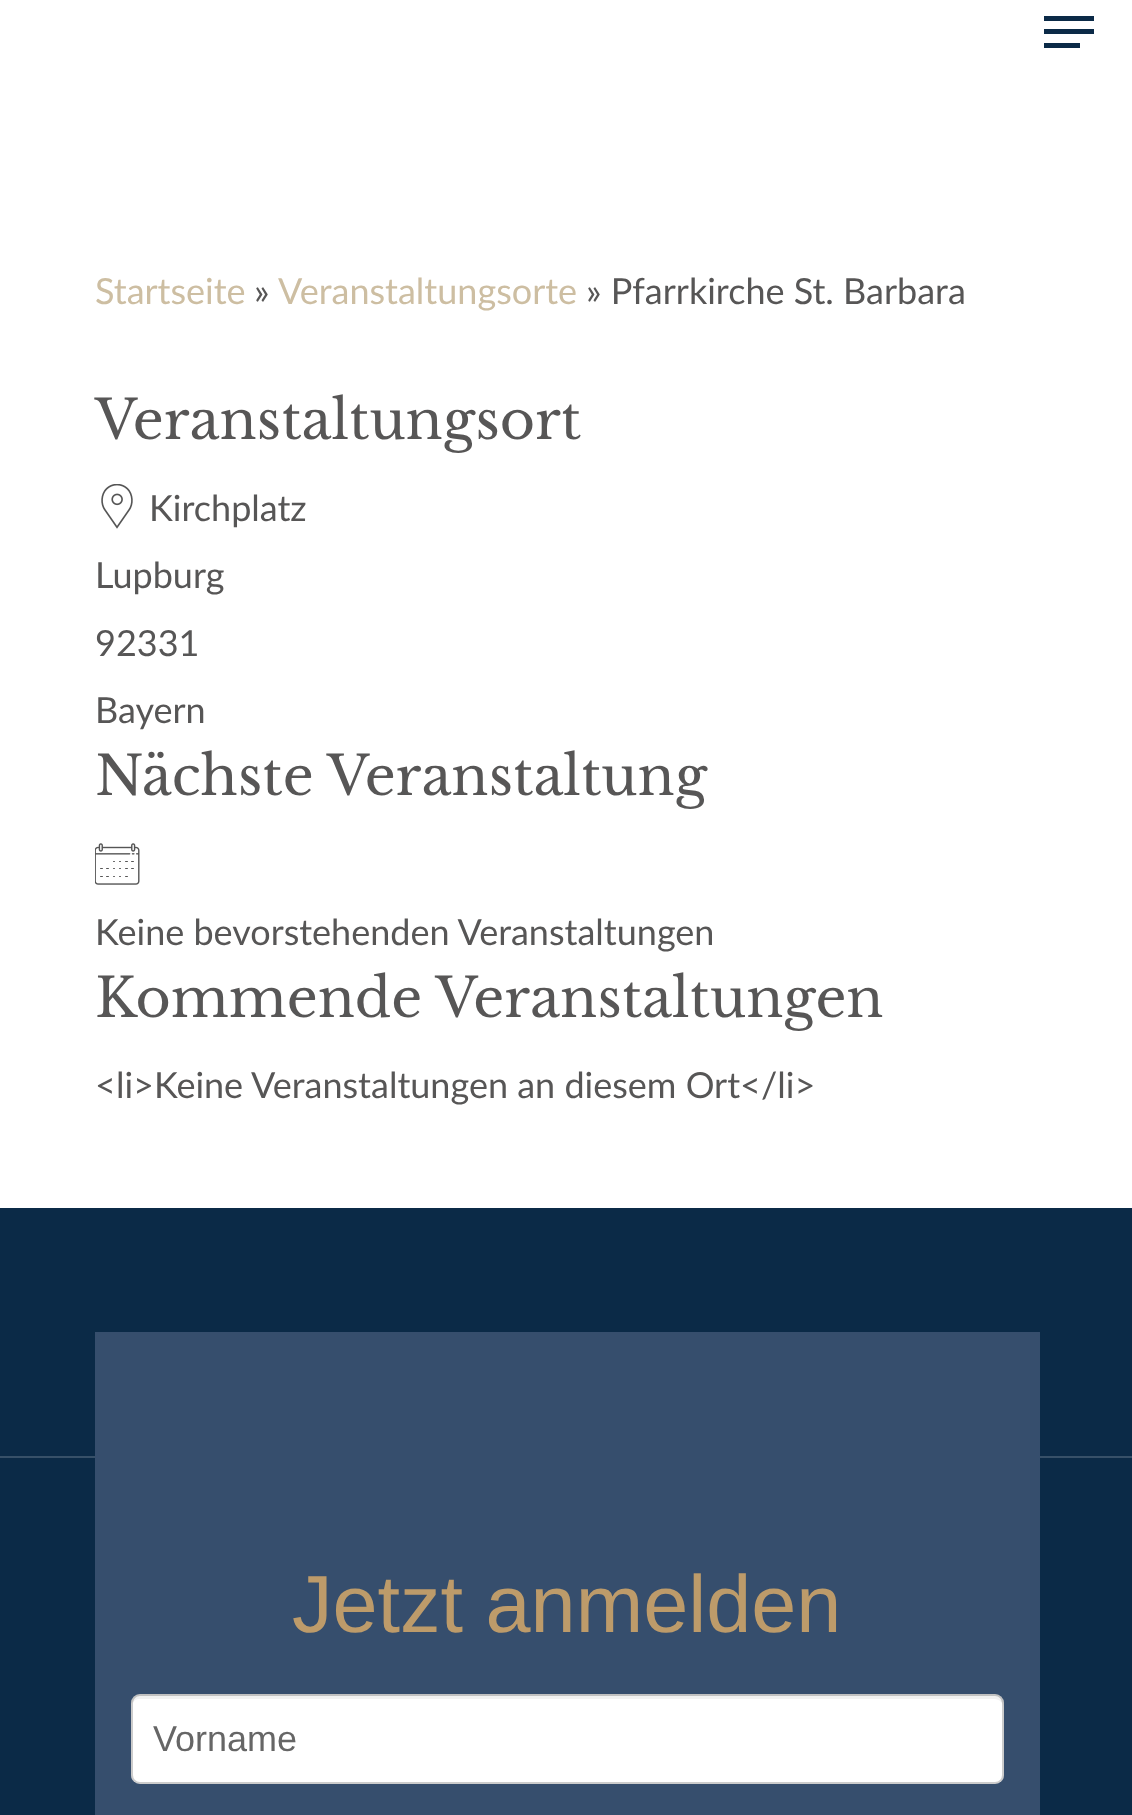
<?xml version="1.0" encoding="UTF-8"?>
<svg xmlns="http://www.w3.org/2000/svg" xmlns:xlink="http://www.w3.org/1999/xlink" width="1132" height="1815">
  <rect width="100%" height="100%" fill="#ffffff" />
  <rect x="1044" y="16" width="50" height="5" fill="#0b2a47" />
  <rect x="1044" y="43" width="36" height="5" fill="#0b2a47" />
  <rect x="1044" y="29" width="50" height="5" fill="#0b2a47" />
  <image x="101" y="484" width="32" height="45" xlink:href="image1.png" />
  <image x="95" y="843" width="45" height="42" xlink:href="image2.png" />
  <rect y="1208" width="1132" height="607" fill="#0b2a47" />
  <rect y="1456" width="1132" height="2" fill="#375068" />
  <rect x="95" y="1332" width="945" height="483" fill="#364e6d" />
  <rect x="131" y="1694" width="873" height="90" rx="9" fill="#ffffff" />
  <rect x="132" y="1695" width="871" height="88" rx="8" fill="none" stroke="#000000" stroke-opacity="0.2" stroke-width="2" />
  <path d="M 140 1699 h 854 c 5 0 10 4 10 9 c 0 -6 0 -14 -9 -14 h -855 c -6 0 -9 5 -9 10 c 2 -3 5 -5 9 -5 z" fill="#000000" fill-opacity="0.05" />
  <text x="95" y="304" style="font-family: Lato; font-size: 36px; fill: #cdbea2">Startseite</text>
  <text x="254" y="304" style="font-family: Lato; font-size: 36px; fill: #575656">»</text>
  <text x="278" y="304" style="font-family: Lato; font-size: 36px; fill: #cdbea2">Veranstaltungsorte</text>
  <text x="586" y="304" style="font-family: Lato; font-size: 36px; fill: #575656">» Pfarrkirche St. Barbara</text>
  <text x="95" y="439" style="font-family: Libre Baskerville; font-size: 54px; fill: #575656">Veranstaltungsort</text>
  <text x="149" y="521" style="font-family: Lato; font-size: 36px; fill: #575656">Kirchplatz</text>
  <text x="95" y="588" style="font-family: Lato; font-size: 36px; fill: #575656">Lupburg</text>
  <text x="95" y="656" style="font-family: Lato; font-size: 36px; fill: #575656">92331</text>
  <text x="95" y="723" style="font-family: Lato; font-size: 36px; fill: #575656">Bayern</text>
  <text x="95" y="795" style="font-family: Libre Baskerville; font-size: 54px; fill: #575656">Nächste Veranstaltung</text>
  <text x="95" y="945" style="font-family: Lato; font-size: 36px; fill: #575656">Keine bevorstehenden Veranstaltungen</text>
  <text x="95" y="1017" style="font-family: Libre Baskerville; font-size: 54px; fill: #575656">Kommende Veranstaltungen</text>
  <text x="95" y="1098" style="font-family: Lato; font-size: 36px; fill: #575656">&lt;li&gt;Keine Veranstaltungen an diesem Ort&lt;/li&gt;</text>
  <text x="292" y="1632" style="font-family: Liberation Sans; font-size: 81px; fill: #bd9b6a">Jetzt anmelden</text>
  <text x="153" y="1751" style="font-family: Liberation Sans; font-size: 36px; fill: #666666">Vorname</text>
</svg>
